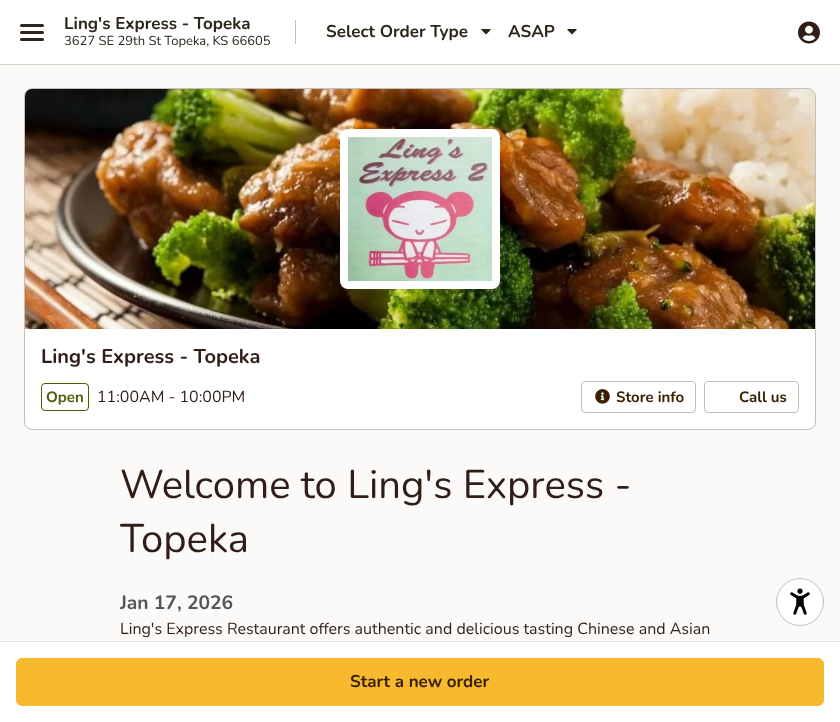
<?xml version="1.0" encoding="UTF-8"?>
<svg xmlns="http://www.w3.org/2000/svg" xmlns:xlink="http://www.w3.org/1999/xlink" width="840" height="722">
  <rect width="100%" height="100%" fill="#fbfaf9" />
  <rect y="64" width="840" height="1" fill="#d7d4cd" />
  <rect width="840" height="64" fill="#ffffff" />
  <rect x="20" y="24" width="24" height="3" rx="1.5" fill="#2c261a" />
  <rect x="20" y="31" width="24" height="3" rx="1.5" fill="#2c261a" />
  <rect x="20" y="38" width="24" height="3" rx="1.5" fill="#2c261a" />
  <rect x="295" y="20" width="1" height="24" fill="#c4c0b7" />
  <image x="481" y="29" width="10" height="6" xlink:href="image1.png" />
  <image x="567" y="29" width="10" height="6" xlink:href="image1.png" />
  <image x="798" y="21" width="22" height="23" xlink:href="image2.png" />
  <rect x="24" y="88" width="792" height="342" rx="8" fill="#ffffff" />
  <rect x="24.5" y="88.5" width="791" height="341" rx="7.5" fill="none" stroke="#948d7c" stroke-opacity="0.55" />
  <image x="25" y="89" width="790" height="240" xlink:href="image3.png" />
  <rect x="340" y="129" width="160" height="160" rx="8" fill="#ffffff" />
  <image x="348" y="137" width="144" height="144" xlink:href="image4.png" />
  <rect x="41.5" y="383.5" width="47" height="27" rx="3.5" fill="none" stroke="#4a5f05" />
  <rect x="581.5" y="381.5" width="114" height="31" rx="3.5" fill="none" stroke="#c4c0b7" />
  <image x="595" y="389" width="15" height="15" xlink:href="image5.png" />
  <rect x="704.5" y="381.5" width="94" height="31" rx="3.5" fill="none" stroke="#c4c0b7" />
  <rect y="642" width="840" height="80" fill="#ffffff" />
  <rect y="641" width="840" height="1" fill="#e7e5e2" />
  <rect x="16.5" y="658.5" width="807" height="47" rx="5.5" fill="#f7b92e" stroke="#f7b92e" />
  <circle cx="800" cy="602" r="24" fill="#ffffff" />
  <circle cx="800" cy="602" r="23.5" fill="none" stroke="#948d7c" stroke-opacity="0.55" />
  <image x="790" y="588" width="20" height="27" xlink:href="image6.png" />
  <text x="64" y="29" style="font-family: Nunito; font-size: 17px; font-weight: bold; fill: #2c261a">Ling's Express - Topeka</text>
  <text x="64" y="45" style="font-family: Nunito; font-size: 13px; fill: #2c261a">3627 SE 29th St Topeka, KS 66605</text>
  <text x="326" y="37" style="font-family: Nunito; font-size: 17px; font-weight: bold; fill: #2c261a">Select Order Type</text>
  <text x="508" y="37" style="font-family: Nunito; font-size: 17px; font-weight: bold; fill: #2c261a">ASAP</text>
  <text x="41" y="363" style="font-family: Nunito; font-size: 20px; font-weight: bold; fill: #301d17">Ling's Express - Topeka</text>
  <text x="46" y="402" style="font-family: Nunito; font-size: 15px; font-weight: bold; fill: #4a5f05">Open</text>
  <text x="97" y="402" style="font-family: Nunito; font-size: 16px; fill: #301d17">11:00AM - 10:00PM</text>
  <text x="616" y="402" style="font-family: Nunito; font-size: 15px; font-weight: bold; fill: #392100">Store info</text>
  <text x="739" y="402" style="font-family: Nunito; font-size: 15px; font-weight: bold; fill: #392100">Call us</text>
  <text x="120" y="498" style="font-family: Nunito; font-size: 40px; fill: #301d17">Welcome to Ling's Express -</text>
  <text x="120" y="552" style="font-family: Nunito; font-size: 40px; fill: #301d17">Topeka</text>
  <text x="120" y="609" style="font-family: Nunito; font-size: 19.25px; font-weight: bold; fill: #555555">Jan 17, 2026</text>
  <text x="120" y="634" style="font-family: Nunito; font-size: 16px; fill: #301d17">Ling's Express Restaurant offers authentic and delicious tasting Chinese and Asian</text>
  <text x="350" y="687" style="font-family: Nunito; font-size: 17px; font-weight: bold; fill: #392100">Start a new order</text>
</svg>
